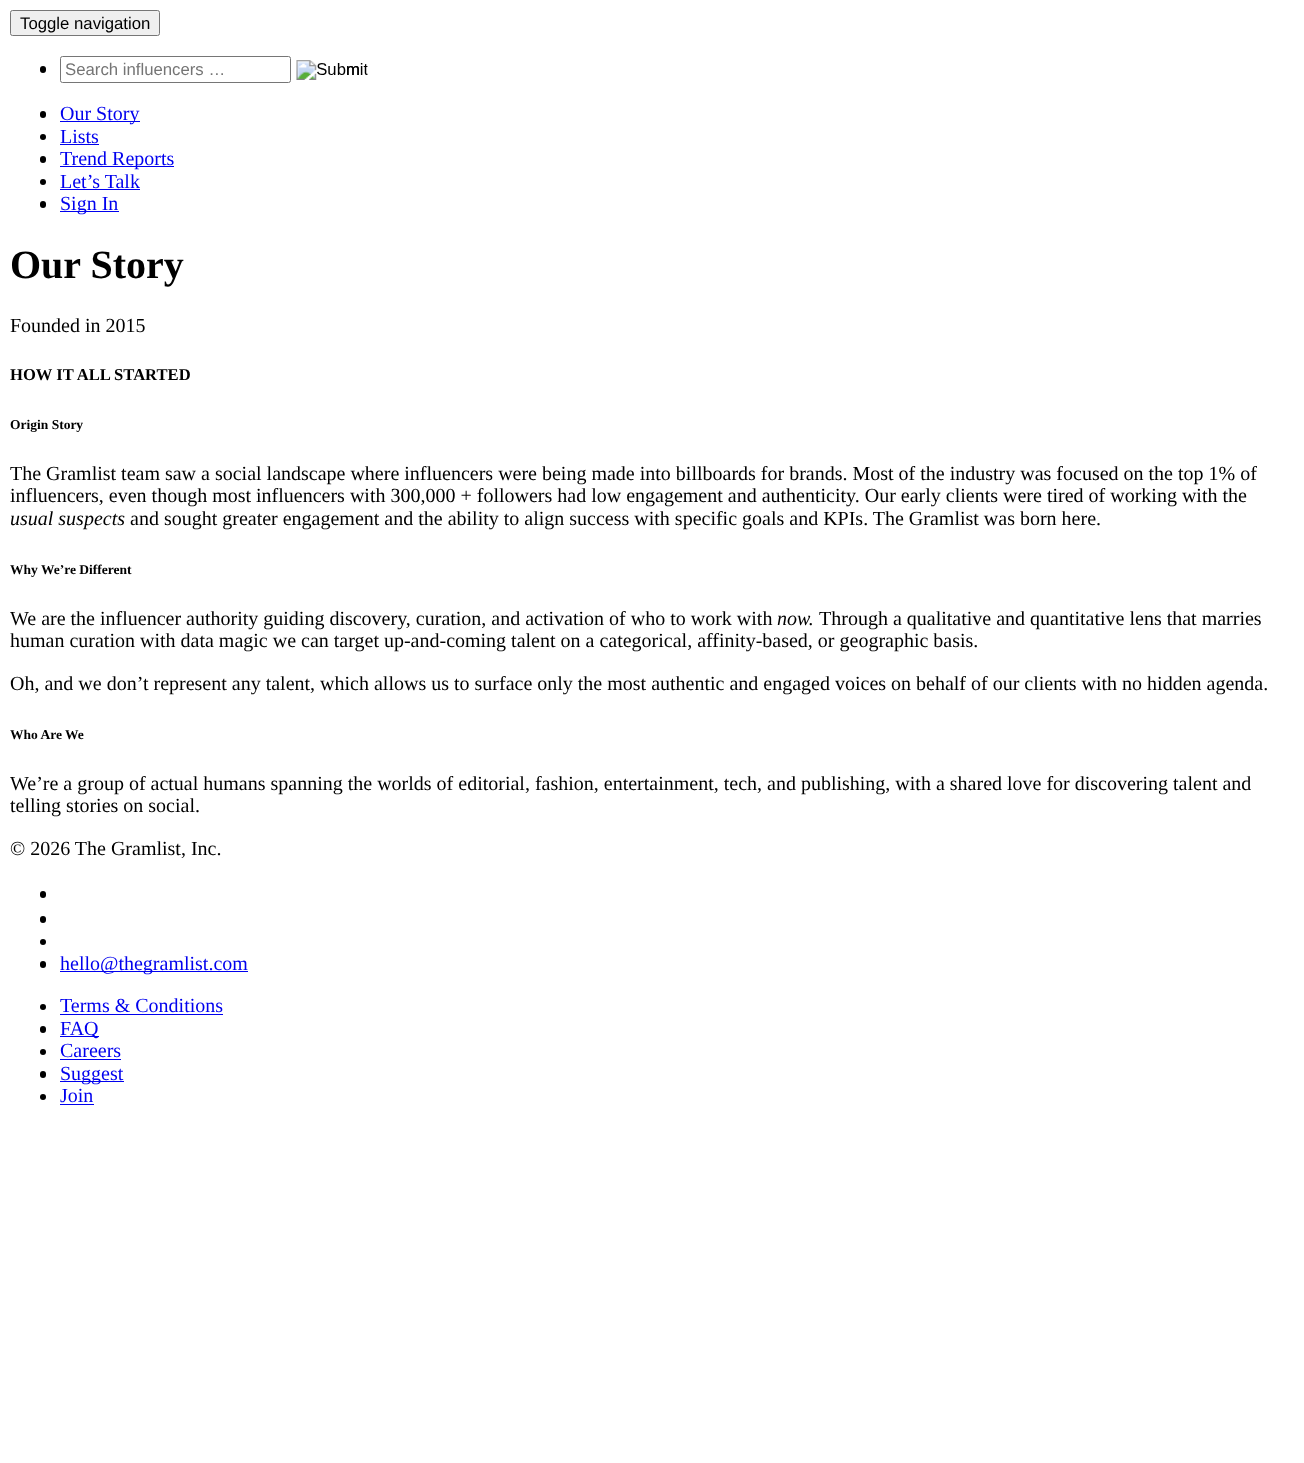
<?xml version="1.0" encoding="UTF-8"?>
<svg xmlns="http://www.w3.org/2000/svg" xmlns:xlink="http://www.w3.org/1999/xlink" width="1304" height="1463">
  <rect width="100%" height="100%" fill="#ffffff" />
  <rect x="10.5" y="10.5" width="149" height="25" rx="2" fill="#efefef" stroke="#767676" />
  <rect x="40" y="66" width="6" height="7" rx="3" fill="#000000" />
  <rect x="60.5" y="56.5" width="230" height="26" rx="2" fill="none" stroke="#767676" />
  <image x="296" y="60" width="72" height="20" xlink:href="image1.png" />
  <rect x="40" y="111" width="6" height="7" rx="3" fill="#000000" />
  <rect x="60" y="121" width="80" height="1" fill="#0000ee" />
  <circle cx="43" cy="137" r="3" fill="#000000" />
  <rect x="60" y="144" width="39" height="1" fill="#0000ee" />
  <rect x="40" y="156" width="6" height="7" rx="3" fill="#000000" />
  <rect x="60" y="166" width="114" height="1" fill="#0000ee" />
  <circle cx="43" cy="182" r="3" fill="#000000" />
  <rect x="60" y="189" width="80" height="1" fill="#0000ee" />
  <rect x="40" y="201" width="6" height="7" rx="3" fill="#000000" />
  <rect x="60" y="211" width="59" height="1" fill="#0000ee" />
  <rect x="40" y="891" width="6" height="7" rx="3" fill="#000000" />
  <rect x="40" y="916" width="6" height="7" rx="3" fill="#000000" />
  <circle cx="43" cy="942" r="3" fill="#000000" />
  <rect x="40" y="961" width="6" height="7" rx="3" fill="#000000" />
  <rect x="60" y="971" width="188" height="1" fill="#0000ee" />
  <circle cx="43" cy="1007" r="3" fill="#000000" />
  <rect x="60" y="1014" width="163" height="1" fill="#0000ee" />
  <rect x="40" y="1026" width="6" height="7" rx="3" fill="#000000" />
  <rect x="60" y="1036" width="39" height="1" fill="#0000ee" />
  <circle cx="43" cy="1052" r="3" fill="#000000" />
  <rect x="60" y="1059" width="61" height="1" fill="#0000ee" />
  <rect x="40" y="1071" width="6" height="7" rx="3" fill="#000000" />
  <rect x="60" y="1081" width="64" height="1" fill="#0000ee" />
  <circle cx="43" cy="1097" r="3" fill="#000000" />
  <rect x="60" y="1104" width="34" height="1" fill="#0000ee" />
  <text x="20" y="29" style="font-family: Liberation Sans; font-size: 16.75px; fill: #000000">Toggle navigation</text>
  <text x="65" y="75" style="font-family: Liberation Sans; font-size: 16.75px; fill: #757575">Search influencers …</text>
  <text x="346" y="75" style="font-family: Liberation Sans; font-size: 16.75px; fill: #000000">m</text>
  <text x="60" y="120" style="font-family: Liberation Serif; font-size: 20px; fill: #0000ee">Our Story</text>
  <text x="60" y="143" style="font-family: Liberation Serif; font-size: 20px; fill: #0000ee">Lists</text>
  <text x="60" y="165" style="font-family: Liberation Serif; font-size: 20px; fill: #0000ee">Trend Reports</text>
  <text x="60" y="188" style="font-family: Liberation Serif; font-size: 20px; fill: #0000ee">Let’s Talk</text>
  <text x="60" y="210" style="font-family: Liberation Serif; font-size: 20px; fill: #0000ee">Sign In</text>
  <text x="10" y="278" style="font-family: Liberation Serif; font-size: 40px; font-weight: bold; fill: #000000">Our Story</text>
  <text x="10" y="332" style="font-family: Liberation Serif; font-size: 20px; fill: #000000">Founded in 2015</text>
  <text x="10" y="380" style="font-family: Liberation Serif; font-size: 16.6px; font-weight: bold; fill: #000000">HOW IT ALL STARTED</text>
  <text x="10" y="429" style="font-family: Liberation Serif; font-size: 13.5px; font-weight: bold; fill: #000000">Origin Story</text>
  <text x="10" y="480" style="font-family: Liberation Serif; font-size: 20px; fill: #000000">The Gramlist team saw a social landscape where influencers were being made into billboards for brands. Most of the industry was focused on the top 1% of</text>
  <text x="10" y="502" style="font-family: Liberation Serif; font-size: 20px; fill: #000000">influencers, even though most influencers with 300,000 + followers had low engagement and authenticity. Our early clients were tired of working with the</text>
  <text x="10" y="525" style="font-family: Liberation Serif; font-size: 20px; font-style: italic; fill: #000000">usual suspects</text>
  <text x="130" y="525" style="font-family: Liberation Serif; font-size: 20px; fill: #000000">and sought greater engagement and the ability to align success with specific goals and KPIs. The Gramlist was born here.</text>
  <text x="10" y="574" style="font-family: Liberation Serif; font-size: 13.5px; font-weight: bold; fill: #000000">Why We’re Different</text>
  <text x="10" y="625" style="font-family: Liberation Serif; font-size: 20px; fill: #000000">We are the influencer authority guiding discovery, curation, and activation of who to work with</text>
  <text x="777" y="625" style="font-family: Liberation Serif; font-size: 20px; font-style: italic; fill: #000000">now.</text>
  <text x="819" y="625" style="font-family: Liberation Serif; font-size: 20px; fill: #000000">Through a qualitative and quantitative lens that marries</text>
  <text x="10" y="647" style="font-family: Liberation Serif; font-size: 20px; fill: #000000">human curation with data magic we can target up-and-coming talent on a categorical, affinity-based, or geographic basis.</text>
  <text x="10" y="690" style="font-family: Liberation Serif; font-size: 20px; fill: #000000">Oh, and we don’t represent any talent, which allows us to surface only the most authentic and engaged voices on behalf of our clients with no hidden agenda.</text>
  <text x="10" y="739" style="font-family: Liberation Serif; font-size: 13.5px; font-weight: bold; fill: #000000">Who Are We</text>
  <text x="10" y="790" style="font-family: Liberation Serif; font-size: 20px; fill: #000000">We’re a group of actual humans spanning the worlds of editorial, fashion, entertainment, tech, and publishing, with a shared love for discovering talent and</text>
  <text x="10" y="812" style="font-family: Liberation Serif; font-size: 20px; fill: #000000">telling stories on social.</text>
  <text x="10" y="855" style="font-family: Liberation Serif; font-size: 20px; fill: #000000">© 2026 The Gramlist, Inc.</text>
  <text x="60" y="970" style="font-family: Liberation Serif; font-size: 20px; fill: #0000ee">hello@thegramlist.com</text>
  <text x="60" y="1012" style="font-family: Liberation Serif; font-size: 20px; fill: #0000ee">Terms &amp; Conditions</text>
  <text x="60" y="1035" style="font-family: Liberation Serif; font-size: 20px; fill: #0000ee">FAQ</text>
  <text x="60" y="1057" style="font-family: Liberation Serif; font-size: 20px; fill: #0000ee">Careers</text>
  <text x="60" y="1080" style="font-family: Liberation Serif; font-size: 20px; fill: #0000ee">Suggest</text>
  <text x="60" y="1102" style="font-family: Liberation Serif; font-size: 20px; fill: #0000ee">Join</text>
</svg>
